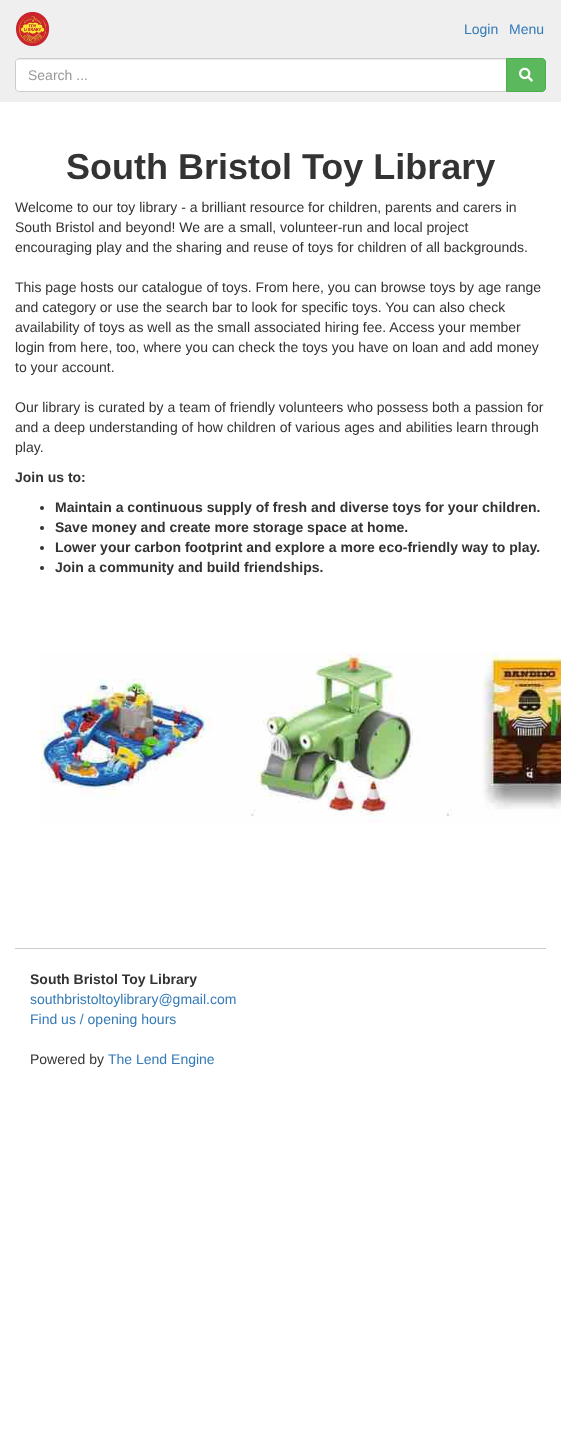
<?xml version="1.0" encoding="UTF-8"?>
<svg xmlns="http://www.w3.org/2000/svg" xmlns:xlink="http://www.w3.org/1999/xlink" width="561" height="1440">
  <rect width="100%" height="100%" fill="#ffffff" />
  <rect width="561" height="102" fill="#efefef" />
  <image x="16" y="12" width="33" height="34" xlink:href="image1.png" />
  <path d="M 19 58 h 488 v 34 h -488 c -2 0 -4 -2 -4 -4 v -26 c 0 -2 2 -4 4 -4 z" fill="#ffffff" />
  <path d="M 19 60 h 487 v -1 h -487 c -2 0 -3 2 -3 4 c 0 -2 1 -3 3 -3 z" fill="#ececec" />
  <path d="M 19 58.5 h 487.5 v 33 h -487.5 c -2 0 -3.5 -1.5 -3.5 -3.5 v -26 c 0 -2 1.5 -3.5 3.5 -3.5 z" fill="none" stroke="#cccccc" />
  <path d="M 506.5 58.5 h 35.5 c 2 0 3.5 1.5 3.5 3.5 v 26 c 0 2 -1.5 3.5 -3.5 3.5 h -35.5 z" fill="#5cb85c" stroke="#4cae4c" />
  <image x="519" y="67" width="14" height="15" xlink:href="image2.png" />
  <circle cx="42" cy="508" r="2" fill="#333333" />
  <circle cx="42" cy="528" r="2" fill="#333333" />
  <circle cx="42" cy="548" r="2" fill="#333333" />
  <circle cx="42" cy="568" r="2" fill="#333333" />
  <image x="40" y="652" width="521" height="171" xlink:href="image3.png" />
  <rect x="15" y="948" width="531" height="1" fill="#cccccc" />
  <text x="464" y="34" style="font-family: Liberation Sans; font-size: 14px; fill: #337ab7">Login</text>
  <text x="509" y="34" style="font-family: Liberation Sans; font-size: 14px; fill: #337ab7">Menu</text>
  <text x="28" y="80" style="font-family: Liberation Sans; font-size: 14px; fill: #999999">Search ...</text>
  <text x="66" y="179" style="font-family: Liberation Sans; font-size: 36px; font-weight: bold; fill: #333333">South Bristol Toy Library</text>
  <text x="15" y="212" style="font-family: Liberation Sans; font-size: 14px; fill: #333333">Welcome to our toy library - a brilliant resource for children, parents and carers in</text>
  <text x="15" y="232" style="font-family: Liberation Sans; font-size: 14px; fill: #333333">South Bristol and beyond! We are a small, volunteer-run and local project</text>
  <text x="15" y="252" style="font-family: Liberation Sans; font-size: 14px; fill: #333333">encouraging play and the sharing and reuse of toys for children of all backgrounds.</text>
  <text x="15" y="292" style="font-family: Liberation Sans; font-size: 14px; fill: #333333">This page hosts our catalogue of toys. From here, you can browse toys by age range</text>
  <text x="15" y="312" style="font-family: Liberation Sans; font-size: 14px; fill: #333333">and category or use the search bar to look for specific toys. You can also check</text>
  <text x="15" y="332" style="font-family: Liberation Sans; font-size: 14px; fill: #333333">availability of toys as well as the small associated hiring fee. Access your member</text>
  <text x="15" y="352" style="font-family: Liberation Sans; font-size: 14px; fill: #333333">login from here, too, where you can check the toys you have on loan and add money</text>
  <text x="15" y="372" style="font-family: Liberation Sans; font-size: 14px; fill: #333333">to your account.</text>
  <text x="15" y="412" style="font-family: Liberation Sans; font-size: 14px; fill: #333333">Our library is curated by a team of friendly volunteers who possess both a passion for</text>
  <text x="15" y="432" style="font-family: Liberation Sans; font-size: 14px; fill: #333333">and a deep understanding of how children of various ages and abilities learn through</text>
  <text x="15" y="452" style="font-family: Liberation Sans; font-size: 14px; fill: #333333">play.</text>
  <text x="15" y="482" style="font-family: Liberation Sans; font-size: 14px; font-weight: bold; fill: #333333">Join us to:</text>
  <text x="55" y="512" style="font-family: Liberation Sans; font-size: 14px; font-weight: bold; fill: #333333">Maintain a continuous supply of fresh and diverse toys for your children.</text>
  <text x="55" y="532" style="font-family: Liberation Sans; font-size: 14px; font-weight: bold; fill: #333333">Save money and create more storage space at home.</text>
  <text x="55" y="552" style="font-family: Liberation Sans; font-size: 14px; font-weight: bold; fill: #333333">Lower your carbon footprint and explore a more eco-friendly way to play.</text>
  <text x="55" y="572" style="font-family: Liberation Sans; font-size: 14px; font-weight: bold; fill: #333333">Join a community and build friendships.</text>
  <text x="30" y="984" style="font-family: Liberation Sans; font-size: 14px; font-weight: bold; fill: #333333">South Bristol Toy Library</text>
  <text x="30" y="1004" style="font-family: Liberation Sans; font-size: 14px; fill: #337ab7">southbristoltoylibrary@gmail.com</text>
  <text x="30" y="1024" style="font-family: Liberation Sans; font-size: 14px; fill: #337ab7">Find us / opening hours</text>
  <text x="30" y="1064" style="font-family: Liberation Sans; font-size: 14px; fill: #333333">Powered by</text>
  <text x="108" y="1064" style="font-family: Liberation Sans; font-size: 14px; fill: #337ab7">The Lend Engine</text>
</svg>
